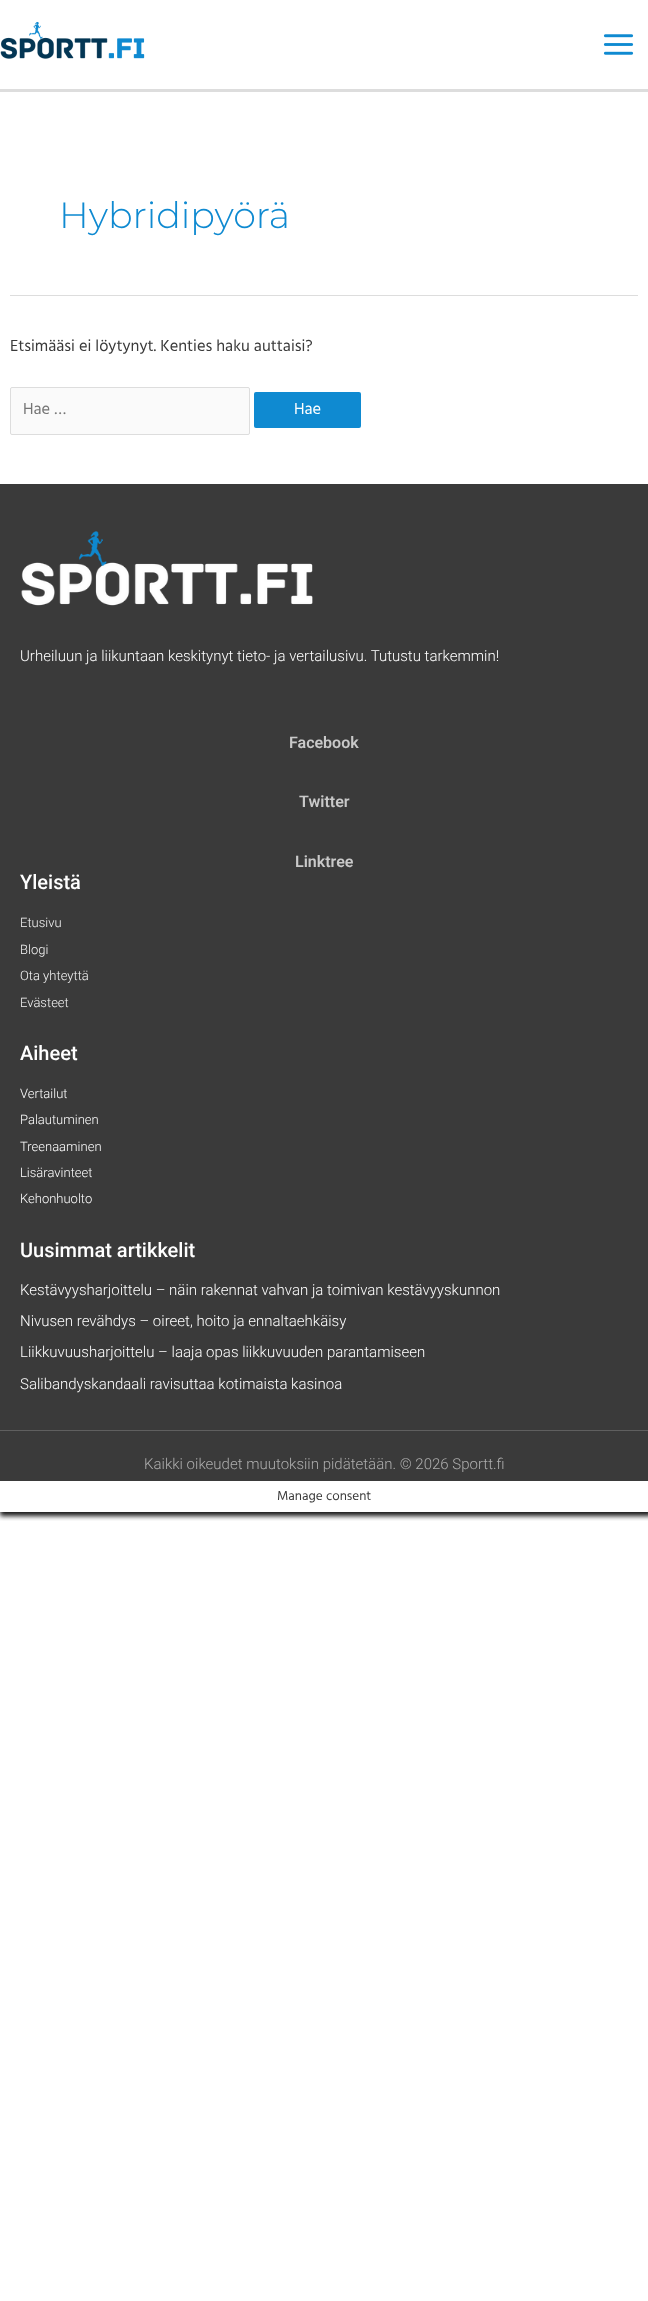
<?xml version="1.0" encoding="UTF-8"?>
<svg xmlns="http://www.w3.org/2000/svg" xmlns:xlink="http://www.w3.org/1999/xlink" width="648" height="2301">
  <defs>
    <clipPath id="clip1"><rect x="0" y="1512" width="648" height="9" /></clipPath>
  </defs>
  <rect width="100%" height="100%" fill="#ffffff" />
  <rect y="89" width="648" height="3" fill="#dddddd" />
  <image x="0" y="21" width="145" height="38" xlink:href="image1.png" />
  <image x="603" y="34" width="31" height="21" xlink:href="image2.png" />
  <rect x="10" y="295" width="628" height="1" fill="#dddddd" />
  <rect x="10.5" y="387.5" width="239" height="47" rx="1.5" fill="#fafafa" stroke="#dddddd" />
  <rect x="254" y="392" width="107" height="36" rx="2" fill="#0f8ad1" />
  <rect y="484" width="648" height="946" fill="#3a3a3a" />
  <image x="21" y="531" width="292" height="75" xlink:href="image3.png" />
  <g clip-path="url(#clip1)">
    <rect y="1481" width="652" height="35" fill="#161616" filter="blur(2.5px)" />
  </g>
  <rect y="1431" width="648" height="50" fill="#3a3a3a" />
  <rect y="1430" width="648" height="1" fill="#5f5f5f" />
  <text x="59" y="228" style="font-family: Montserrat; font-size: 36.5px; font-weight: 300; fill: #0f8ad1">Hybridipyörä</text>
  <text x="10" y="351" style="font-family: Hind; font-size: 16.4px; fill: #3a3a3a">Etsimääsi ei löytynyt. Kenties haku auttaisi?</text>
  <text x="23" y="414" style="font-family: Hind; font-size: 16.4px; fill: #757575">Hae …</text>
  <text x="294" y="414" style="font-family: Hind; font-size: 16.4px; fill: #ffffff">Hae</text>
  <text x="20" y="661" style="font-family: Roboto; font-size: 15px; font-weight: 300; fill: #ffffff">Urheiluun ja liikuntaan keskitynyt tieto- ja vertailusivu. Tutustu tarkemmin!</text>
  <text x="289" y="748" style="font-family: Roboto; font-size: 16px; font-weight: 600; fill: #c9c9c9">Facebook</text>
  <text x="299" y="807" style="font-family: Roboto; font-size: 16px; font-weight: 600; fill: #c9c9c9">Twitter</text>
  <text x="295" y="867" style="font-family: Roboto; font-size: 16px; font-weight: 600; fill: #c9c9c9">Linktree</text>
  <text x="20" y="889" style="font-family: Roboto; font-size: 20px; font-weight: 500; fill: #ffffff">Yleistä</text>
  <text x="20" y="927" style="font-family: Roboto; font-size: 13px; font-weight: 300; fill: #f5f5f5">Etusivu</text>
  <text x="20" y="954" style="font-family: Roboto; font-size: 13px; font-weight: 300; fill: #f5f5f5">Blogi</text>
  <text x="20" y="980" style="font-family: Roboto; font-size: 13px; font-weight: 300; fill: #f5f5f5">Ota yhteyttä</text>
  <text x="20" y="1007" style="font-family: Roboto; font-size: 13px; font-weight: 300; fill: #f5f5f5">Evästeet</text>
  <text x="20" y="1060" style="font-family: Roboto; font-size: 20px; font-weight: 500; fill: #ffffff">Aiheet</text>
  <text x="20" y="1098" style="font-family: Roboto; font-size: 13px; font-weight: 300; fill: #ffffff">Vertailut</text>
  <text x="20" y="1124" style="font-family: Roboto; font-size: 13px; font-weight: 300; fill: #ffffff">Palautuminen</text>
  <text x="20" y="1151" style="font-family: Roboto; font-size: 13px; font-weight: 300; fill: #ffffff">Treenaaminen</text>
  <text x="20" y="1177" style="font-family: Roboto; font-size: 13px; font-weight: 300; fill: #ffffff">Lisäravinteet</text>
  <text x="20" y="1203" style="font-family: Roboto; font-size: 13px; font-weight: 300; fill: #ffffff">Kehonhuolto</text>
  <text x="20" y="1257" style="font-family: Roboto; font-size: 20px; font-weight: 500; fill: #ffffff">Uusimmat artikkelit</text>
  <text x="20" y="1295" style="font-family: Roboto; font-size: 15px; font-weight: 300; fill: #ffffff">Kestävyysharjoittelu – näin rakennat vahvan ja toimivan kestävyyskunnon</text>
  <text x="20" y="1326" style="font-family: Roboto; font-size: 15px; font-weight: 300; fill: #ffffff">Nivusen revähdys – oireet, hoito ja ennaltaehkäisy</text>
  <text x="20" y="1357" style="font-family: Roboto; font-size: 15px; font-weight: 300; fill: #ffffff">Liikkuvuusharjoittelu – laaja opas liikkuvuuden parantamiseen</text>
  <text x="20" y="1389" style="font-family: Roboto; font-size: 15px; font-weight: 300; fill: #ffffff">Salibandyskandaali ravisuttaa kotimaista kasinoa</text>
  <text x="144" y="1469" style="font-family: Roboto; font-size: 15px; font-weight: 300; fill: #adadad">Kaikki oikeudet muutoksiin pidätetään. © 2026 Sportt.fi</text>
  <text x="277" y="1500" style="font-family: Hind; font-size: 13.25px; fill: #3a3a3a">Manage consent</text>
</svg>
